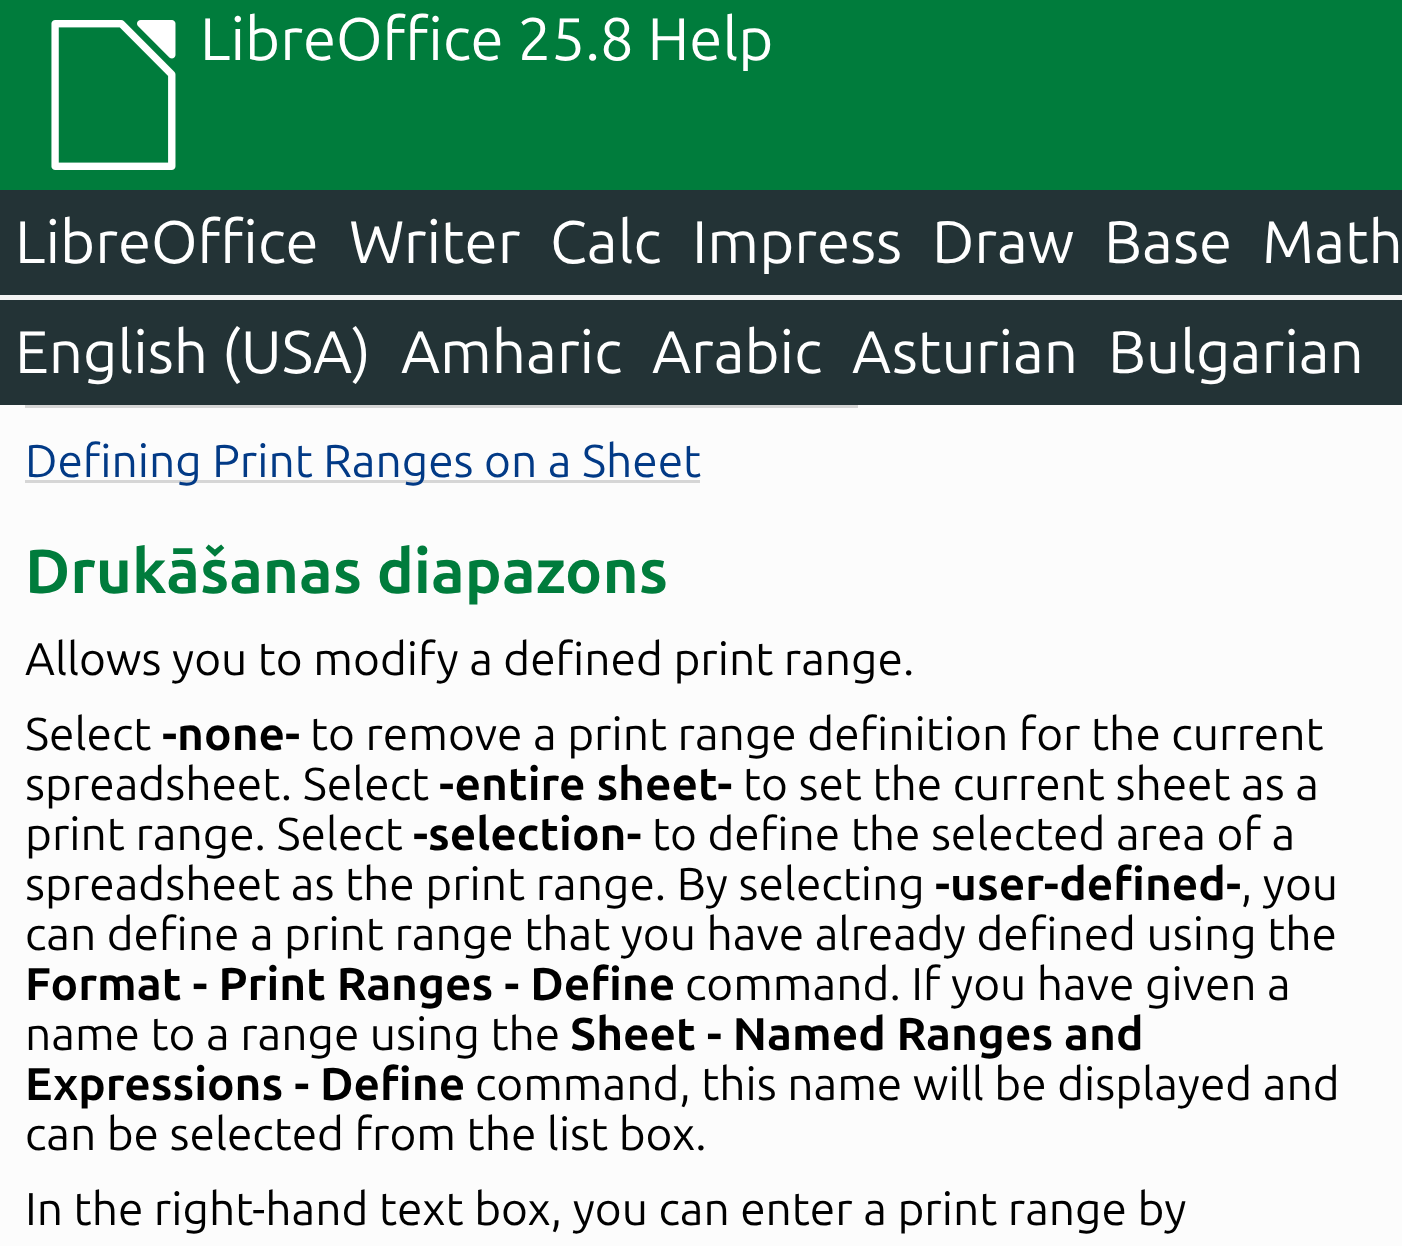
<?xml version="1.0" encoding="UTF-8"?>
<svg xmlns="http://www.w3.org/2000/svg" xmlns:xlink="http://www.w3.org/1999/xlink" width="1402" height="1246">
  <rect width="100%" height="100%" fill="#fcfcfc" />
  <rect width="1402" height="190" fill="#007c3c" />
  <image x="51" y="20" width="125" height="150" xlink:href="image1.png" />
  <rect y="190" width="1402" height="105" fill="#233336" />
  <rect y="295" width="1402" height="5" fill="#f3f3f3" />
  <rect y="300" width="1402" height="105" fill="#233336" />
  <rect x="25" y="405" width="833" height="3" fill="#d6d6d6" />
  <rect x="25" y="480" width="675" height="3" fill="#d6d6d6" />
  <text x="200" y="60" style="font-family: Ubuntu; font-size: 60px; fill: #ffffff">LibreOffice 25.8 Help</text>
  <text x="15" y="263" style="font-family: Ubuntu; font-size: 60px; fill: #ffffff">LibreOffice</text>
  <text x="349" y="263" style="font-family: Ubuntu; font-size: 60px; fill: #ffffff">Writer</text>
  <text x="550" y="263" style="font-family: Ubuntu; font-size: 60px; fill: #ffffff">Calc</text>
  <text x="692" y="263" style="font-family: Ubuntu; font-size: 60px; fill: #ffffff">Impress</text>
  <text x="932" y="263" style="font-family: Ubuntu; font-size: 60px; fill: #ffffff">Draw</text>
  <text x="1104" y="263" style="font-family: Ubuntu; font-size: 60px; fill: #ffffff">Base</text>
  <text x="1262" y="263" style="font-family: Ubuntu; font-size: 60px; fill: #ffffff">Math</text>
  <text x="15" y="373" style="font-family: Ubuntu; font-size: 60px; fill: #ffffff">English (USA)</text>
  <text x="401" y="373" style="font-family: Ubuntu; font-size: 60px; fill: #ffffff">Amharic</text>
  <text x="652" y="373" style="font-family: Ubuntu; font-size: 60px; fill: #ffffff">Arabic</text>
  <text x="852" y="373" style="font-family: Ubuntu; font-size: 60px; fill: #ffffff">Asturian</text>
  <text x="1108" y="373" style="font-family: Ubuntu; font-size: 60px; fill: #ffffff">Bulgarian</text>
  <text x="25" y="477" style="font-family: Ubuntu; font-size: 46px; fill: #023a86">Defining Print Ranges on a Sheet</text>
  <text x="25" y="593" style="font-family: Ubuntu; font-size: 62px; font-weight: bold; fill: #007c3c">Drukāšanas diapazons</text>
  <text x="25" y="675" style="font-family: Ubuntu; font-size: 46px; fill: #000000">Allows you to modify a defined print range.</text>
  <text x="25" y="750" style="font-family: Ubuntu; font-size: 46px; fill: #000000">Select</text>
  <text x="162" y="750" style="font-family: Ubuntu; font-size: 46px; font-weight: bold; fill: #000000">-none-</text>
  <text x="310" y="750" style="font-family: Ubuntu; font-size: 46px; fill: #000000">to remove a print range definition for the current</text>
  <text x="25" y="800" style="font-family: Ubuntu; font-size: 46px; fill: #000000">spreadsheet. Select</text>
  <text x="439" y="800" style="font-family: Ubuntu; font-size: 46px; font-weight: bold; fill: #000000">-entire sheet-</text>
  <text x="743" y="800" style="font-family: Ubuntu; font-size: 46px; fill: #000000">to set the current sheet as a</text>
  <text x="25" y="850" style="font-family: Ubuntu; font-size: 46px; fill: #000000">print range. Select</text>
  <text x="413" y="850" style="font-family: Ubuntu; font-size: 46px; font-weight: bold; fill: #000000">-selection-</text>
  <text x="652" y="850" style="font-family: Ubuntu; font-size: 46px; fill: #000000">to define the selected area of a</text>
  <text x="25" y="900" style="font-family: Ubuntu; font-size: 46px; fill: #000000">spreadsheet as the print range. By selecting</text>
  <text x="935" y="900" style="font-family: Ubuntu; font-size: 46px; font-weight: bold; fill: #000000">-user-defined-</text>
  <text x="1241" y="900" style="font-family: Ubuntu; font-size: 46px; fill: #000000">, you</text>
  <text x="25" y="950" style="font-family: Ubuntu; font-size: 46px; fill: #000000">can define a print range that you have already defined using the</text>
  <text x="25" y="1000" style="font-family: Ubuntu; font-size: 46px; font-weight: bold; fill: #000000">Format - Print Ranges - Define</text>
  <text x="685" y="1000" style="font-family: Ubuntu; font-size: 46px; fill: #000000">command. If you have given a</text>
  <text x="25" y="1050" style="font-family: Ubuntu; font-size: 46px; fill: #000000">name to a range using the</text>
  <text x="570" y="1050" style="font-family: Ubuntu; font-size: 46px; font-weight: bold; fill: #000000">Sheet - Named Ranges and</text>
  <text x="25" y="1100" style="font-family: Ubuntu; font-size: 46px; font-weight: bold; fill: #000000">Expressions - Define</text>
  <text x="475" y="1100" style="font-family: Ubuntu; font-size: 46px; fill: #000000">command, this name will be displayed and</text>
  <text x="25" y="1150" style="font-family: Ubuntu; font-size: 46px; fill: #000000">can be selected from the list box.</text>
  <text x="25" y="1225" style="font-family: Ubuntu; font-size: 46px; fill: #000000">In the right-hand text box, you can enter a print range by</text>
</svg>
